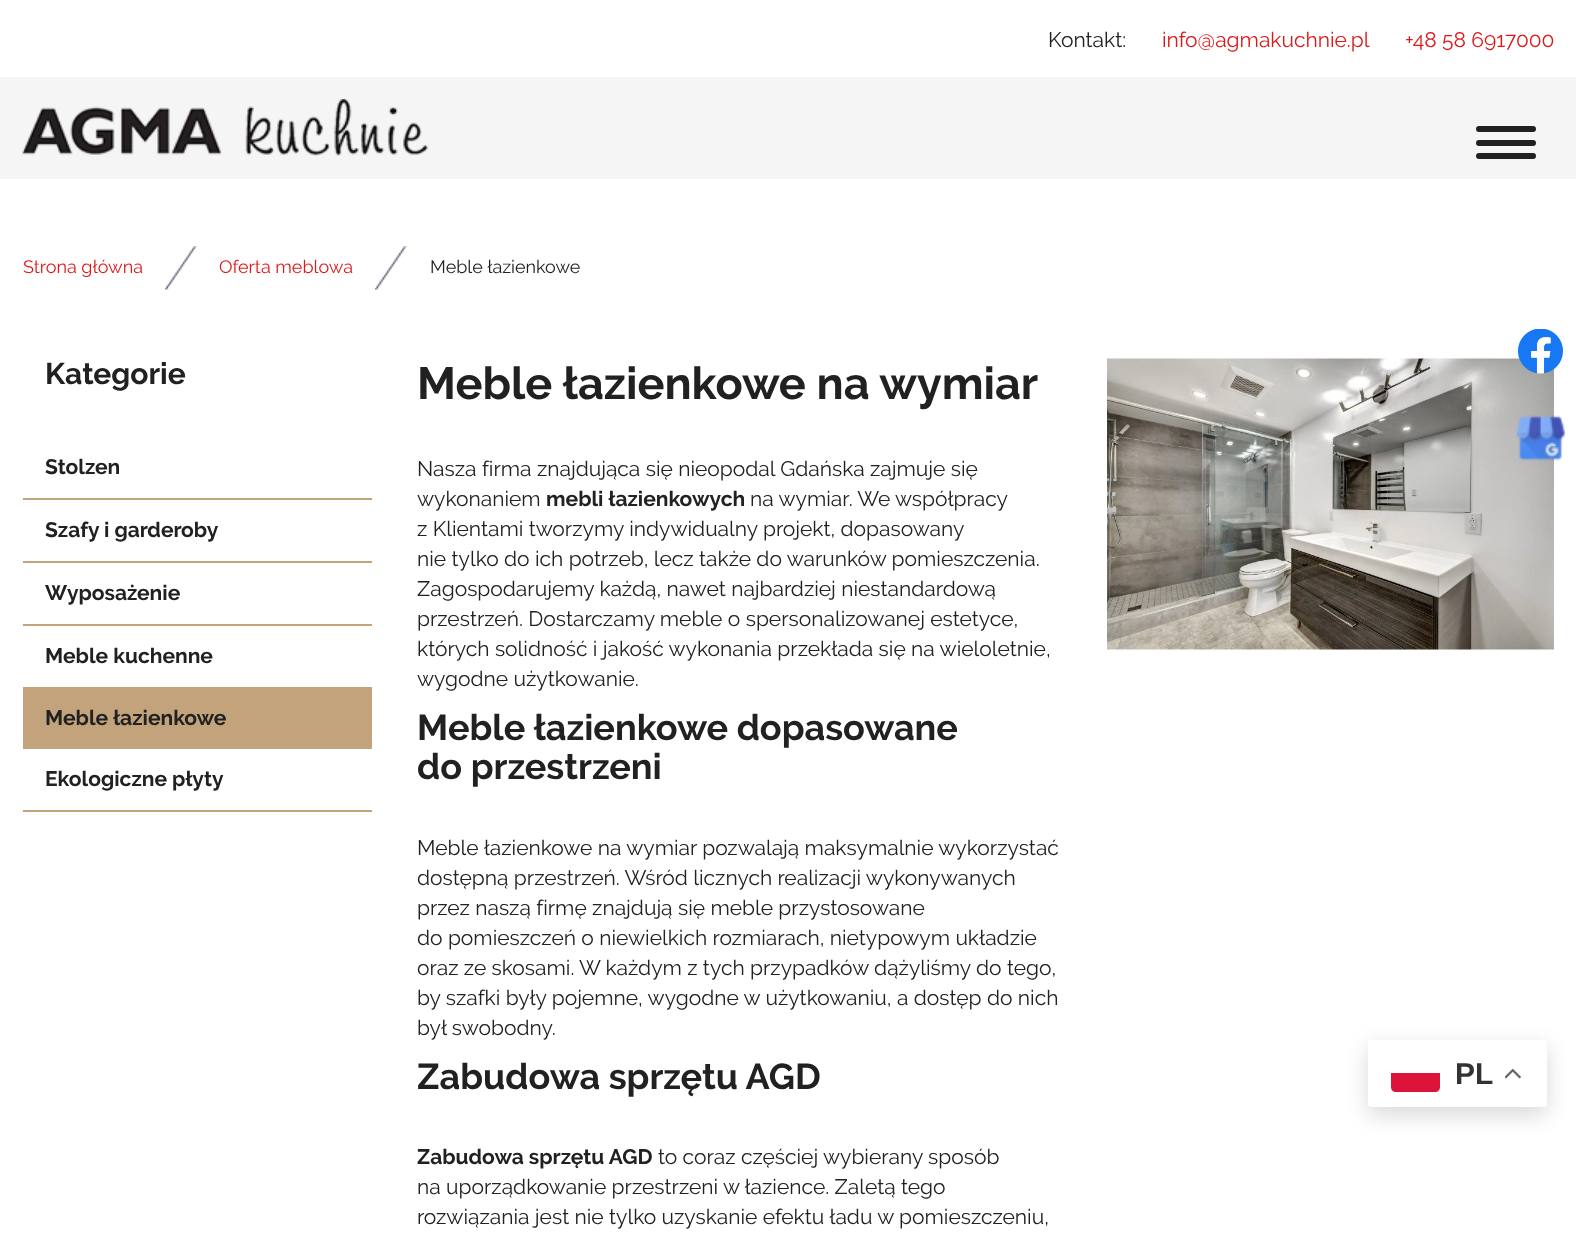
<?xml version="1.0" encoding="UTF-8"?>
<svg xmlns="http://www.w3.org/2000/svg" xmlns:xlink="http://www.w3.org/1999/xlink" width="1576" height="1234">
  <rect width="100%" height="100%" fill="#ffffff" />
  <image x="165" y="246" width="32" height="44" xlink:href="image1.png" />
  <image x="375" y="246" width="32" height="44" xlink:href="image2.png" />
  <rect x="23" y="498" width="349" height="2" fill="#c2a37b" />
  <rect x="23" y="561" width="349" height="2" fill="#c2a37b" />
  <rect x="23" y="624" width="349" height="2" fill="#c2a37b" />
  <rect x="23" y="687" width="349" height="62" fill="#c2a37b" />
  <rect x="23" y="810" width="349" height="2" fill="#c2a37b" />
  <image x="1107" y="358" width="447" height="292" xlink:href="image3.png" />
  <rect y="77" width="1576" height="102" fill="#f5f5f5" />
  <image x="22" y="99" width="406" height="57" xlink:href="image4.png" />
  <rect x="1476" y="126" width="60" height="6" rx="3" fill="#212121" />
  <rect x="1476" y="140" width="60" height="6" rx="3" fill="#212121" />
  <rect x="1476" y="153" width="60" height="6" rx="3" fill="#212121" />
  <rect x="1368" y="1047" width="179" height="68" rx="3" fill="#000000" fill-opacity="0.15" filter="blur(11px)" />
  <rect x="1368" y="1040" width="179" height="67" rx="3" fill="#ffffff" />
  <path d="M 1391 1073 h 49 v 14 c 0 3 -2 5 -5 5 h -39 c -3 0 -5 -2 -5 -5 z" fill="#dc143c" />
  <image x="1505" y="1068" width="16" height="11" xlink:href="image5.png" />
  <image x="1518" y="329" width="45" height="45" xlink:href="image6.png" />
  <image x="1516" y="415" width="49" height="46" xlink:href="image7.png" />
  <text x="23" y="273" style="font-family: Raleway; font-size: 18px; fill: #de1818">Strona główna</text>
  <text x="219" y="273" style="font-family: Raleway; font-size: 18px; fill: #de1818">Oferta meblowa</text>
  <text x="430" y="273" style="font-family: Raleway; font-size: 18px; fill: #212121">Meble łazienkowe</text>
  <text x="45" y="384" style="font-family: Raleway; font-size: 30px; font-weight: bold; fill: #212121">Kategorie</text>
  <text x="45" y="474" style="font-family: Raleway; font-size: 21px; font-weight: bold; fill: #212121">Stolzen</text>
  <text x="45" y="537" style="font-family: Raleway; font-size: 21px; font-weight: bold; fill: #212121">Szafy i garderoby</text>
  <text x="45" y="600" style="font-family: Raleway; font-size: 21px; font-weight: bold; fill: #212121">Wyposażenie</text>
  <text x="45" y="663" style="font-family: Raleway; font-size: 21px; font-weight: bold; fill: #212121">Meble kuchenne</text>
  <text x="45" y="725" style="font-family: Raleway; font-size: 21px; font-weight: bold; fill: #212121">Meble łazienkowe</text>
  <text x="45" y="786" style="font-family: Raleway; font-size: 21px; font-weight: bold; fill: #212121">Ekologiczne płyty</text>
  <text x="417" y="399" style="font-family: Raleway; font-size: 45px; font-weight: bold; fill: #212121">Meble łazienkowe na wymiar</text>
  <text x="417" y="476" style="font-family: Raleway; font-size: 21px; fill: #212121">Nasza firma znajdująca się nieopodal Gdańska zajmuje się</text>
  <text x="417" y="506" style="font-family: Raleway; font-size: 21px; fill: #212121">wykonaniem</text>
  <text x="546" y="506" style="font-family: Raleway; font-size: 21px; font-weight: bold; fill: #212121">mebli łazienkowych</text>
  <text x="750" y="506" style="font-family: Raleway; font-size: 21px; fill: #212121">na wymiar. We współpracy</text>
  <text x="417" y="536" style="font-family: Raleway; font-size: 21px; fill: #212121">z Klientami tworzymy indywidualny projekt, dopasowany</text>
  <text x="417" y="566" style="font-family: Raleway; font-size: 21px; fill: #212121">nie tylko do ich potrzeb, lecz także do warunków pomieszczenia.</text>
  <text x="417" y="596" style="font-family: Raleway; font-size: 21px; fill: #212121">Zagospodarujemy każdą, nawet najbardziej niestandardową</text>
  <text x="417" y="626" style="font-family: Raleway; font-size: 21px; fill: #212121">przestrzeń. Dostarczamy meble o spersonalizowanej estetyce,</text>
  <text x="417" y="656" style="font-family: Raleway; font-size: 21px; fill: #212121">których solidność i jakość wykonania przekłada się na wieloletnie,</text>
  <text x="417" y="686" style="font-family: Raleway; font-size: 21px; fill: #212121">wygodne użytkowanie.</text>
  <text x="417" y="740" style="font-family: Raleway; font-size: 36px; font-weight: bold; fill: #212121">Meble łazienkowe dopasowane</text>
  <text x="417" y="779" style="font-family: Raleway; font-size: 36px; font-weight: bold; fill: #212121">do przestrzeni</text>
  <text x="417" y="855" style="font-family: Raleway; font-size: 21px; fill: #212121">Meble łazienkowe na wymiar pozwalają maksymalnie wykorzystać</text>
  <text x="417" y="885" style="font-family: Raleway; font-size: 21px; fill: #212121">dostępną przestrzeń. Wśród licznych realizacji wykonywanych</text>
  <text x="417" y="915" style="font-family: Raleway; font-size: 21px; fill: #212121">przez naszą firmę znajdują się meble przystosowane</text>
  <text x="417" y="945" style="font-family: Raleway; font-size: 21px; fill: #212121">do pomieszczeń o niewielkich rozmiarach, nietypowym układzie</text>
  <text x="417" y="975" style="font-family: Raleway; font-size: 21px; fill: #212121">oraz ze skosami. W każdym z tych przypadków dążyliśmy do tego,</text>
  <text x="417" y="1005" style="font-family: Raleway; font-size: 21px; fill: #212121">by szafki były pojemne, wygodne w użytkowaniu, a dostęp do nich</text>
  <text x="417" y="1035" style="font-family: Raleway; font-size: 21px; fill: #212121">był swobodny.</text>
  <text x="417" y="1089" style="font-family: Raleway; font-size: 36px; font-weight: bold; fill: #212121">Zabudowa sprzętu AGD</text>
  <text x="417" y="1164" style="font-family: Raleway; font-size: 21px; font-weight: bold; fill: #212121">Zabudowa sprzętu AGD</text>
  <text x="658" y="1164" style="font-family: Raleway; font-size: 21px; fill: #212121">to coraz częściej wybierany sposób</text>
  <text x="417" y="1194" style="font-family: Raleway; font-size: 21px; fill: #212121">na uporządkowanie przestrzeni w łazience. Zaletą tego</text>
  <text x="417" y="1224" style="font-family: Raleway; font-size: 21px; fill: #212121">rozwiązania jest nie tylko uzyskanie efektu ładu w pomieszczeniu,</text>
  <text x="1048" y="47" style="font-family: Raleway; font-size: 21px; fill: #212121">Kontakt:</text>
  <text x="1162" y="47" style="font-family: Raleway; font-size: 21px; fill: #de1818">info@agmakuchnie.pl</text>
  <text x="1405" y="47" style="font-family: Raleway; font-size: 21px; fill: #de1818">+48 58 6917000</text>
  <text x="1455" y="1084" style="font-family: Liberation Sans; font-size: 30px; font-weight: bold; fill: #333333">PL</text>
</svg>
